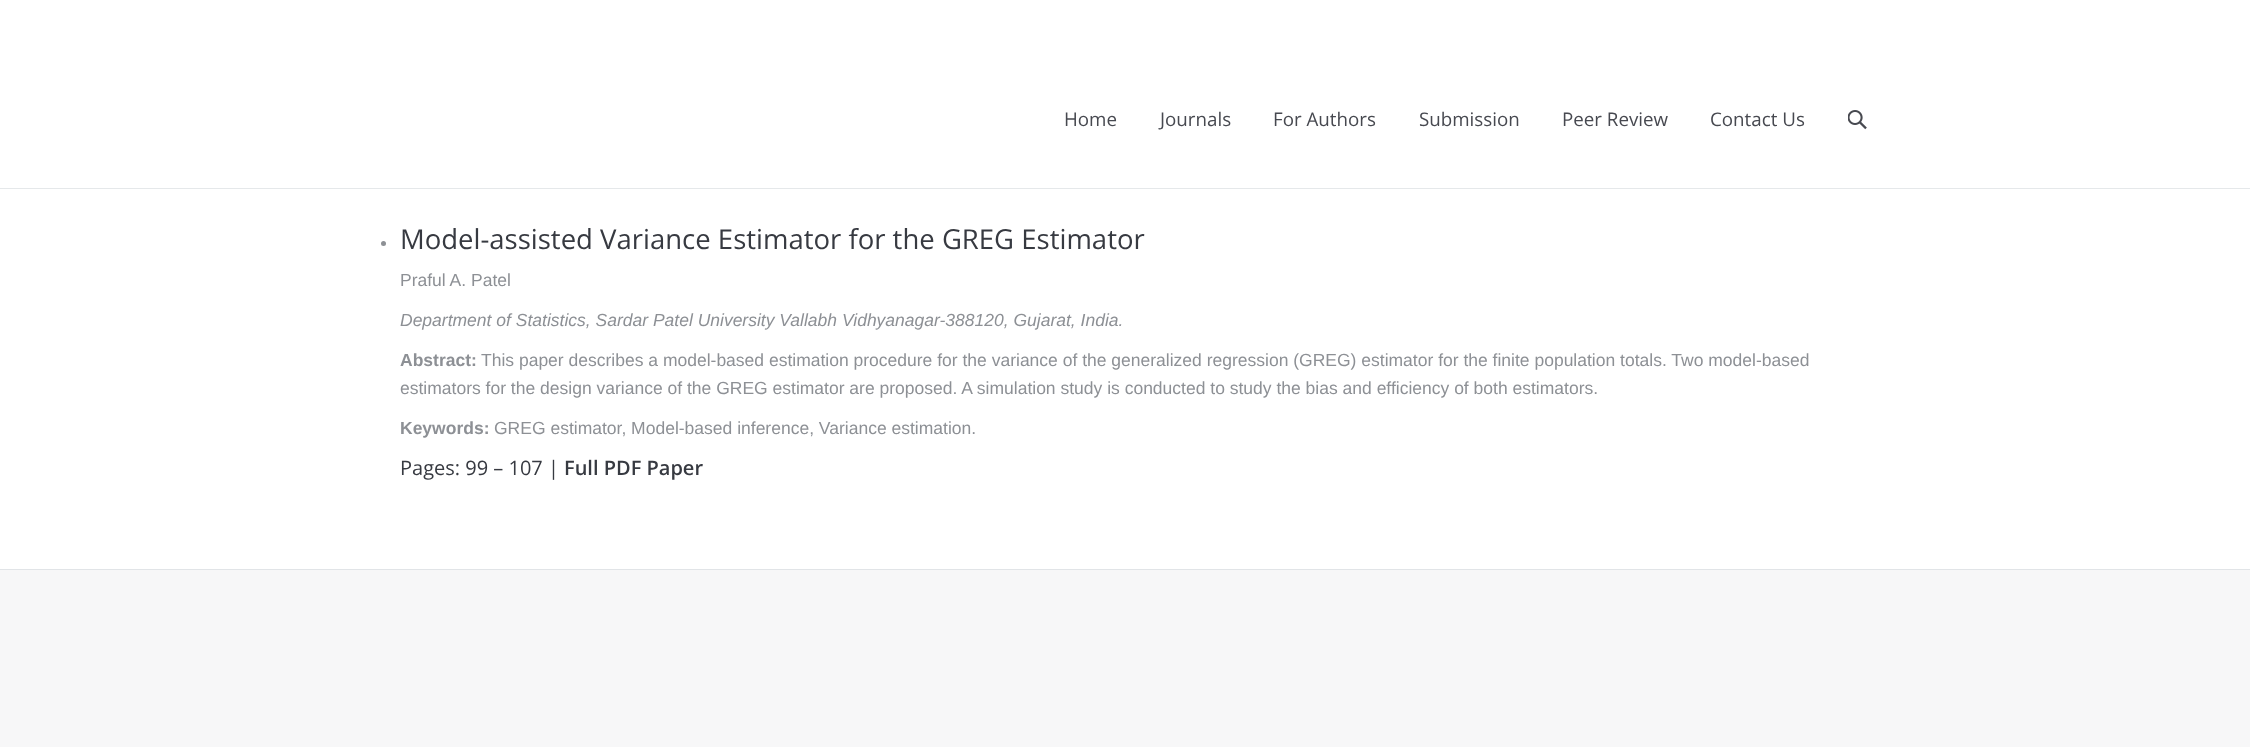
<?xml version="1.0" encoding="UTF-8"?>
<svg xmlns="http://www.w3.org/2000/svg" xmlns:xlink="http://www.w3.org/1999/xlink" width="2250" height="747">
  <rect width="100%" height="100%" fill="#ffffff" />
  <rect y="188" width="2250" height="1" fill="#e5e8ea" />
  <image x="1848" y="110" width="19" height="20" xlink:href="image1.png" />
  <circle cx="383.5" cy="243.5" r="2.5" fill="#8d9095" />
  <rect y="570" width="2250" height="177" fill="#f7f7f8" />
  <rect y="569" width="2250" height="1" fill="#e1e4e7" />
  <text x="1064" y="126" style="font-family: Open Sans; font-size: 18.75px; fill: #474950">Home</text>
  <text x="1160" y="126" style="font-family: Open Sans; font-size: 18.75px; fill: #474950">Journals</text>
  <text x="1273" y="126" style="font-family: Open Sans; font-size: 18.75px; fill: #474950">For Authors</text>
  <text x="1419" y="126" style="font-family: Open Sans; font-size: 18.75px; fill: #474950">Submission</text>
  <text x="1562" y="126" style="font-family: Open Sans; font-size: 18.75px; fill: #474950">Peer Review</text>
  <text x="1710" y="126" style="font-family: Open Sans; font-size: 18.75px; fill: #474950">Contact Us</text>
  <text x="400" y="249" style="font-family: Open Sans; font-size: 27.5px; fill: #373a41">Model-assisted Variance Estimator for the GREG Estimator</text>
  <text x="400" y="286" style="font-family: Liberation Sans; font-size: 17.5px; fill: #8d9095">Praful A. Patel</text>
  <text x="400" y="326" style="font-family: Liberation Sans; font-size: 17.5px; font-style: italic; fill: #8d9095">Department of Statistics, Sardar Patel University Vallabh Vidhyanagar-388120, Gujarat, India.</text>
  <text x="400" y="366" style="font-family: Liberation Sans; font-size: 17.5px; font-weight: bold; fill: #8d9095">Abstract:</text>
  <text x="481" y="366" style="font-family: Liberation Sans; font-size: 17.5px; fill: #8d9095">This paper describes a model-based estimation procedure for the variance of the generalized regression (GREG) estimator for the finite population totals. Two model-based</text>
  <text x="400" y="394" style="font-family: Liberation Sans; font-size: 17.5px; fill: #8d9095">estimators for the design variance of the GREG estimator are proposed. A simulation study is conducted to study the bias and efficiency of both estimators.</text>
  <text x="400" y="434" style="font-family: Liberation Sans; font-size: 17.5px; font-weight: bold; fill: #8d9095">Keywords:</text>
  <text x="494" y="434" style="font-family: Liberation Sans; font-size: 17.5px; fill: #8d9095">GREG estimator, Model-based inference, Variance estimation.</text>
  <text x="400" y="475" style="font-family: Open Sans; font-size: 20px; fill: #373a41">Pages: 99 – 107 |</text>
  <text x="564" y="475" style="font-family: Open Sans; font-size: 20px; font-weight: 600; fill: #373a41">Full PDF Paper</text>
</svg>
